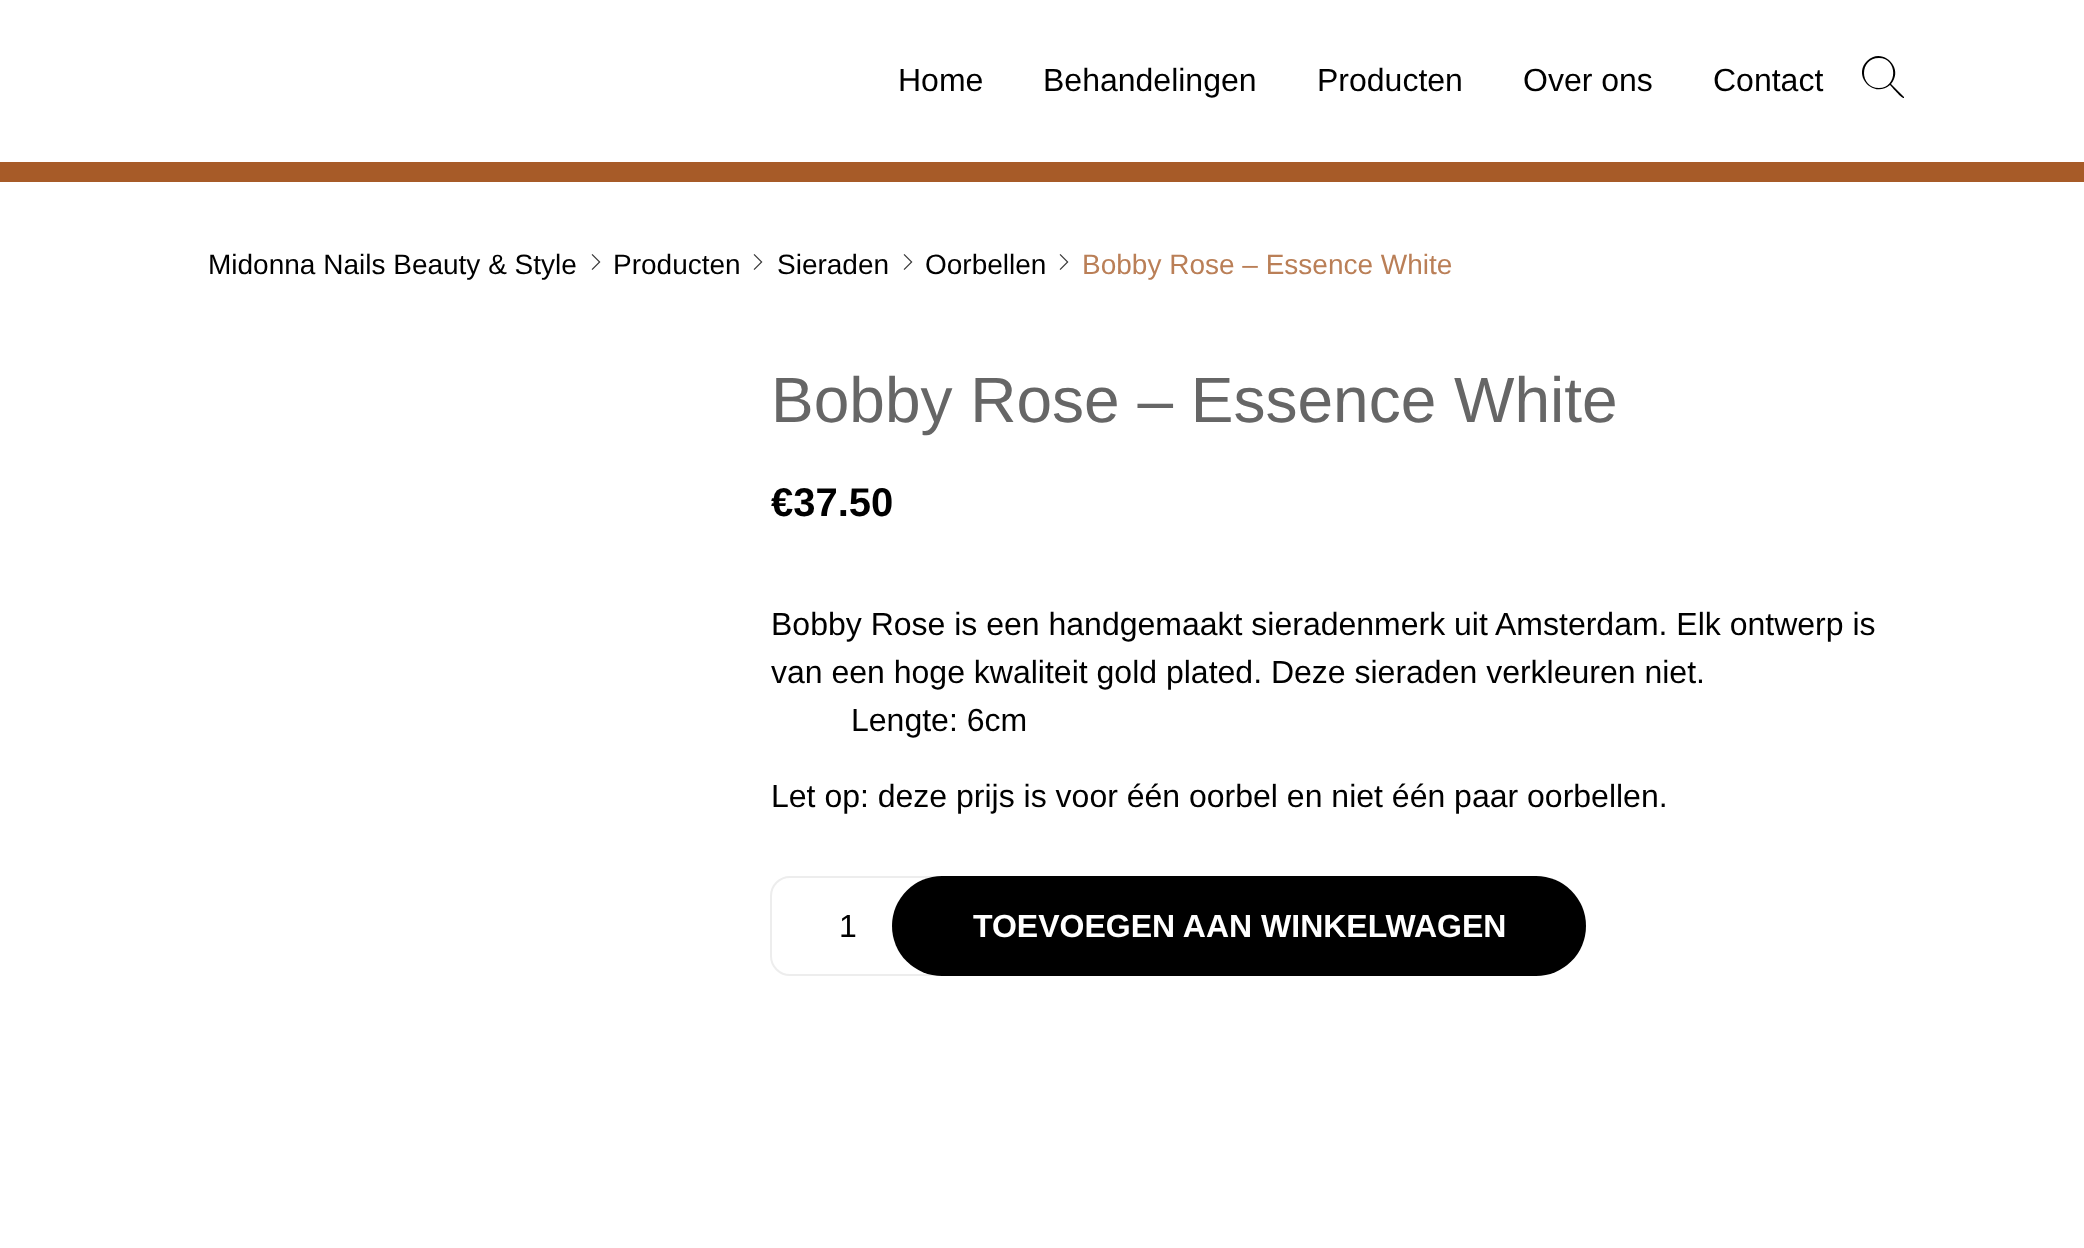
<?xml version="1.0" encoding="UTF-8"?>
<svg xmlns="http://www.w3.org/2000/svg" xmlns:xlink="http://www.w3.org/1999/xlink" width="2084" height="1248">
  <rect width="100%" height="100%" fill="#ffffff" />
  <path d="M 1904 97 l -13 -13 c 14 -16 -9 -38 -24 -23 c -15 15 7 38 23 24 c 2 2 12 14 14 13 z m -25 -9 c -20 0 -20 -30 0 -30 c 19 0 19 30 0 30 z" fill="#000000" />
  <rect y="162" width="2084" height="20" fill="#a75b28" />
  <image x="591" y="254" width="10" height="16" xlink:href="image1.png" />
  <image x="753" y="254" width="10" height="16" xlink:href="image1.png" />
  <image x="903" y="254" width="10" height="16" xlink:href="image1.png" />
  <image x="1059" y="254" width="10" height="16" xlink:href="image1.png" />
  <rect x="771" y="877" width="178" height="98" rx="19" fill="none" stroke="#ededed" stroke-width="2" />
  <rect x="892" y="876" width="694" height="100" rx="50" fill="#000000" />
  <text x="898" y="91" style="font-family: Liberation Sans; font-size: 32px; fill: #000000">Home</text>
  <text x="1043" y="91" style="font-family: Liberation Sans; font-size: 32px; fill: #000000">Behandelingen</text>
  <text x="1317" y="91" style="font-family: Liberation Sans; font-size: 32px; fill: #000000">Producten</text>
  <text x="1523" y="91" style="font-family: Liberation Sans; font-size: 32px; fill: #000000">Over ons</text>
  <text x="1713" y="91" style="font-family: Liberation Sans; font-size: 32px; fill: #000000">Contact</text>
  <text x="208" y="274" style="font-family: Liberation Sans; font-size: 28px; fill: #000000">Midonna Nails Beauty &amp; Style</text>
  <text x="613" y="274" style="font-family: Liberation Sans; font-size: 28px; fill: #000000">Producten</text>
  <text x="777" y="274" style="font-family: Liberation Sans; font-size: 28px; fill: #000000">Sieraden</text>
  <text x="925" y="274" style="font-family: Liberation Sans; font-size: 28px; fill: #000000">Oorbellen</text>
  <text x="1082" y="274" style="font-family: Liberation Sans; font-size: 28px; fill: #ba7f57">Bobby Rose – Essence White</text>
  <text x="771" y="422" style="font-family: Liberation Sans; font-size: 64px; fill: #666666">Bobby Rose – Essence White</text>
  <text x="771" y="516" style="font-family: Liberation Sans; font-size: 40px; font-weight: bold; fill: #000000">€37.50</text>
  <text x="771" y="635" style="font-family: Liberation Sans; font-size: 32px; fill: #000000">Bobby Rose is een handgemaakt sieradenmerk uit Amsterdam. Elk ontwerp is</text>
  <text x="771" y="683" style="font-family: Liberation Sans; font-size: 32px; fill: #000000">van een hoge kwaliteit gold plated. Deze sieraden verkleuren niet.</text>
  <text x="851" y="731" style="font-family: Liberation Sans; font-size: 32px; fill: #000000">Lengte: 6cm</text>
  <text x="771" y="807" style="font-family: Liberation Sans; font-size: 32px; fill: #000000">Let op: deze prijs is voor één oorbel en niet één paar oorbellen.</text>
  <text x="839" y="937" style="font-family: Liberation Sans; font-size: 32px; fill: #000000">1</text>
  <text x="973" y="937" style="font-family: Liberation Sans; font-size: 32px; font-weight: bold; fill: #ffffff">TOEVOEGEN AAN WINKELWAGEN</text>
</svg>
